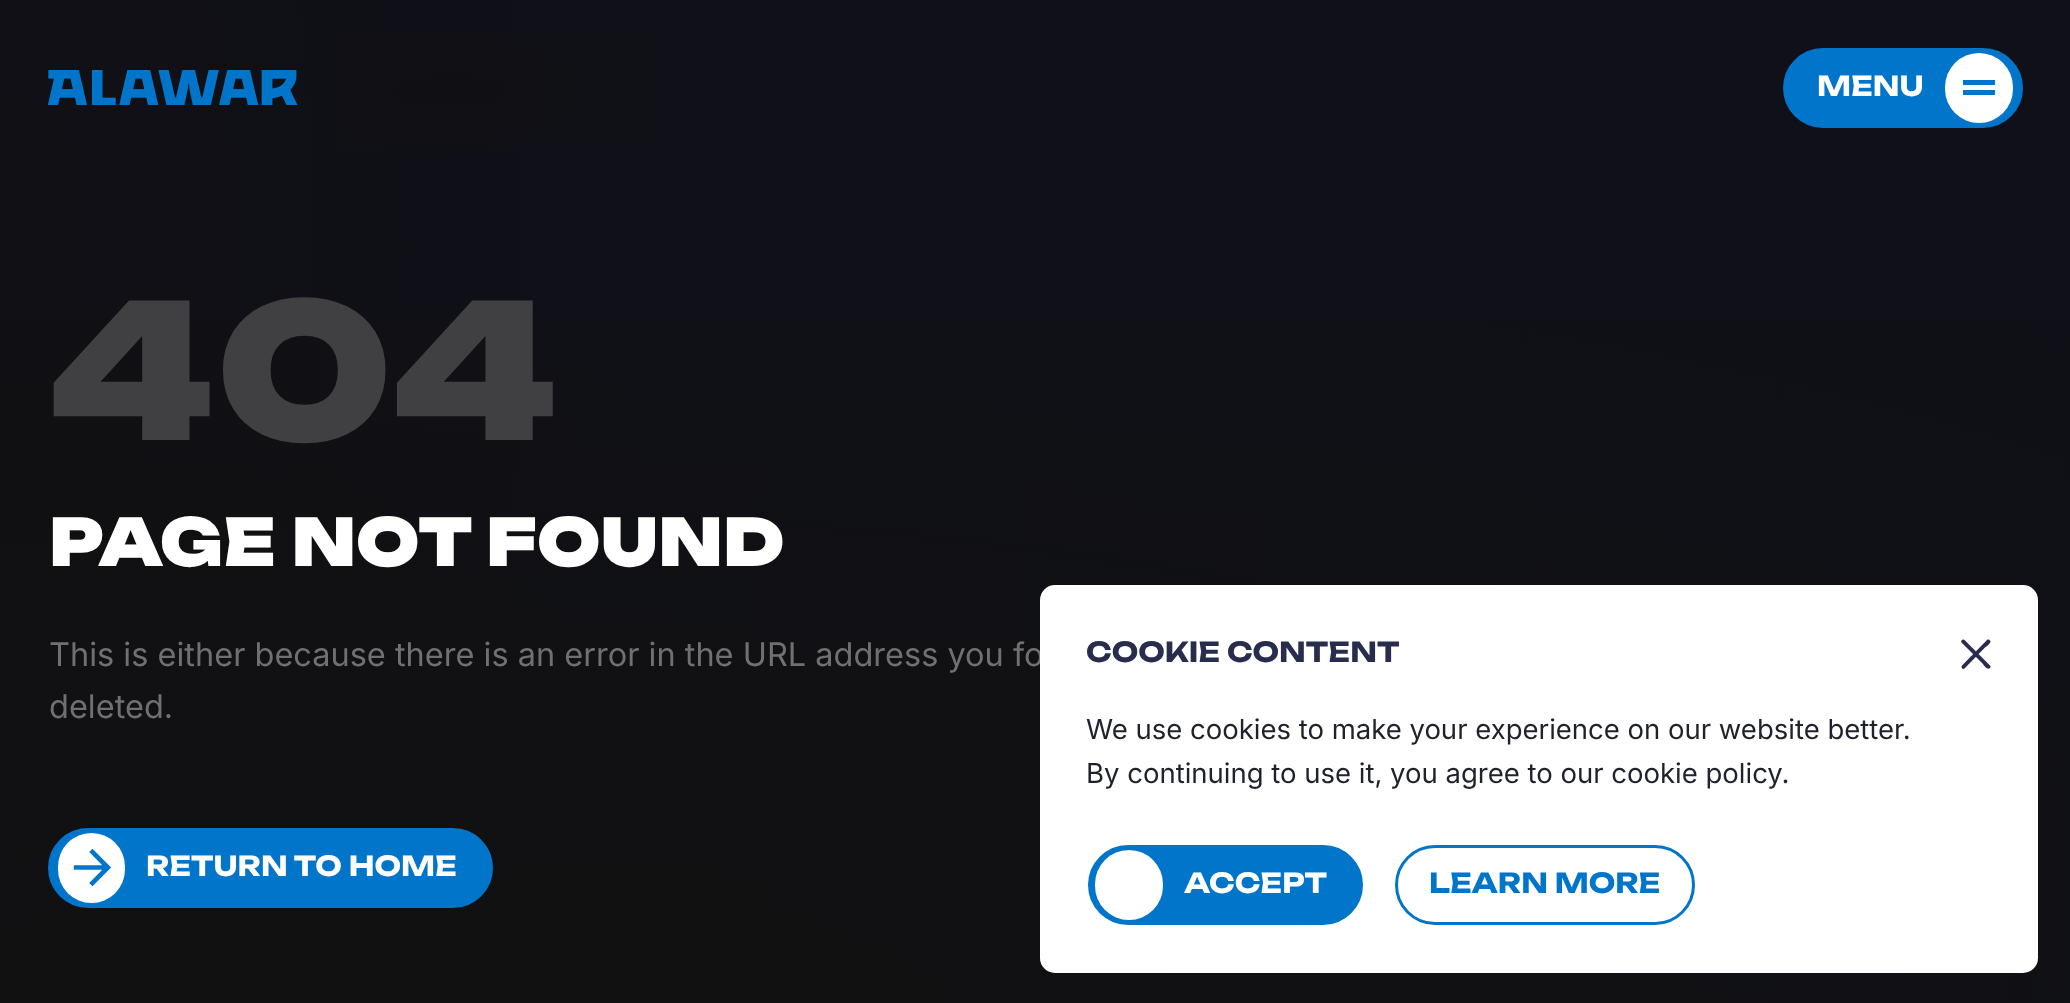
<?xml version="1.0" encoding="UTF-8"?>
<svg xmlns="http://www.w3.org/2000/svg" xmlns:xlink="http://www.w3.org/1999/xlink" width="2070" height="1003">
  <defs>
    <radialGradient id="g1" gradientUnits="userSpaceOnUse" cx="0" cy="0" r="1" gradientTransform="matrix(600 0 0 1628 21 261)"><stop offset="0" stop-color="#101015" /><stop offset="1" stop-color="#0f1018" /></radialGradient>
    <radialGradient id="g2" gradientUnits="userSpaceOnUse" cx="0" cy="0" r="1" gradientTransform="matrix(621 0 0 191 455 90)"><stop offset="0" stop-color="#111111" stop-opacity="0.46" /><stop offset="1" stop-color="#111111" stop-opacity="0" /></radialGradient>
    <radialGradient id="g3" gradientUnits="userSpaceOnUse" cx="0" cy="0" r="1" gradientTransform="matrix(3084 0 0 1065 497 1045)"><stop offset="0" stop-color="#111111" /><stop offset="1" stop-color="#111111" stop-opacity="0" /></radialGradient>
  </defs>
  <rect width="100%" height="100%" fill="#ffffff" />
  <rect width="2070" height="1003" fill="url(#g1)" />
  <image x="48" y="70" width="250" height="35" xlink:href="image1.png" />
  <rect x="1784.5" y="49.5" width="237" height="77" rx="38.5" fill="#0075c9" stroke="#0075c9" stroke-width="3" />
  <rect x="1945" y="53" width="68" height="70" rx="34" fill="#ffffff" />
  <rect x="1963" y="80" width="32" height="5" fill="#0075c9" />
  <rect x="1963" y="90" width="32" height="5" fill="#0075c9" />
  <rect x="340" y="33" width="309" height="114" fill="url(#g2)" />
  <rect y="318" width="2070" height="685" fill="url(#g3)" />
  <rect x="49.5" y="829.5" width="442" height="77" rx="38.5" fill="#0075c9" stroke="#0075c9" stroke-width="3" />
  <rect x="58" y="833" width="67" height="70" rx="33.5" fill="#ffffff" />
  <image x="73" y="848" width="38" height="39" xlink:href="image2.png" />
  <text x="1817" y="96" style="font-family: Unbounded; font-size: 27.5px; font-weight: bold; fill: #ffffff">MENU</text>
  <text x="49" y="440" style="font-family: Unbounded; font-size: 186px; font-weight: 900; fill: #404043">404</text>
  <text x="49" y="566" style="font-family: Unbounded; font-size: 65px; font-weight: 900; fill: #ffffff">PAGE NOT FOUND</text>
  <text x="49" y="666" style="font-family: Inter; font-size: 32.5px; fill: #707072">This is either because there is an error in the URL address you fo</text>
  <text x="49" y="718" style="font-family: Inter; font-size: 32.5px; fill: #707072">deleted.</text>
  <text x="146" y="876" style="font-family: Unbounded; font-size: 27.5px; font-weight: bold; fill: #ffffff">RETURN TO HOME</text>
  <rect x="1040" y="585" width="998" height="388" rx="15" fill="#ffffff" />
  <text x="1086" y="662" style="font-family: Unbounded; font-size: 27.5px; font-weight: bold; fill: #282c4d">COOKIE CONTENT</text>
  <path d="M 1964.5 640 l 26 26 c 0 0.5 0 1.5 -0.5 2 c -2 3 -7 -3.5 -7 -4 l -21.5 -21.5 c -1 -1 0 -3 2 -3 z" fill="#282c4d" />
  <path d="M 1962 665.5 l 25.5 -26 c 1 0 1.5 0 2 0.5 c 3.5 2 -3.5 7 -4 7 l -21 21.5 c -1.5 1 -3 0 -3 -2 z" fill="#282c4d" />
  <text x="1086" y="739" style="font-family: Inter; font-size: 27.5px; fill: #1f212d">We use cookies to make your experience on our website better.</text>
  <text x="1086" y="783" style="font-family: Inter; font-size: 27.5px; fill: #1f212d">By continuing to use it, you agree to our cookie policy.</text>
  <rect x="1089.5" y="846.5" width="272" height="77" rx="38.5" fill="#0075c9" stroke="#0075c9" stroke-width="3" />
  <rect x="1095" y="850" width="68" height="70" rx="34" fill="#ffffff" />
  <text x="1184" y="893" style="font-family: Unbounded; font-size: 27.5px; font-weight: bold; fill: #ffffff">ACCEPT</text>
  <rect x="1396.5" y="846.5" width="297" height="77" rx="38.5" fill="none" stroke="#0075c9" stroke-width="3" />
  <text x="1429" y="893" style="font-family: Unbounded; font-size: 27.5px; font-weight: bold; fill: #0075c9">LEARN MORE</text>
</svg>
